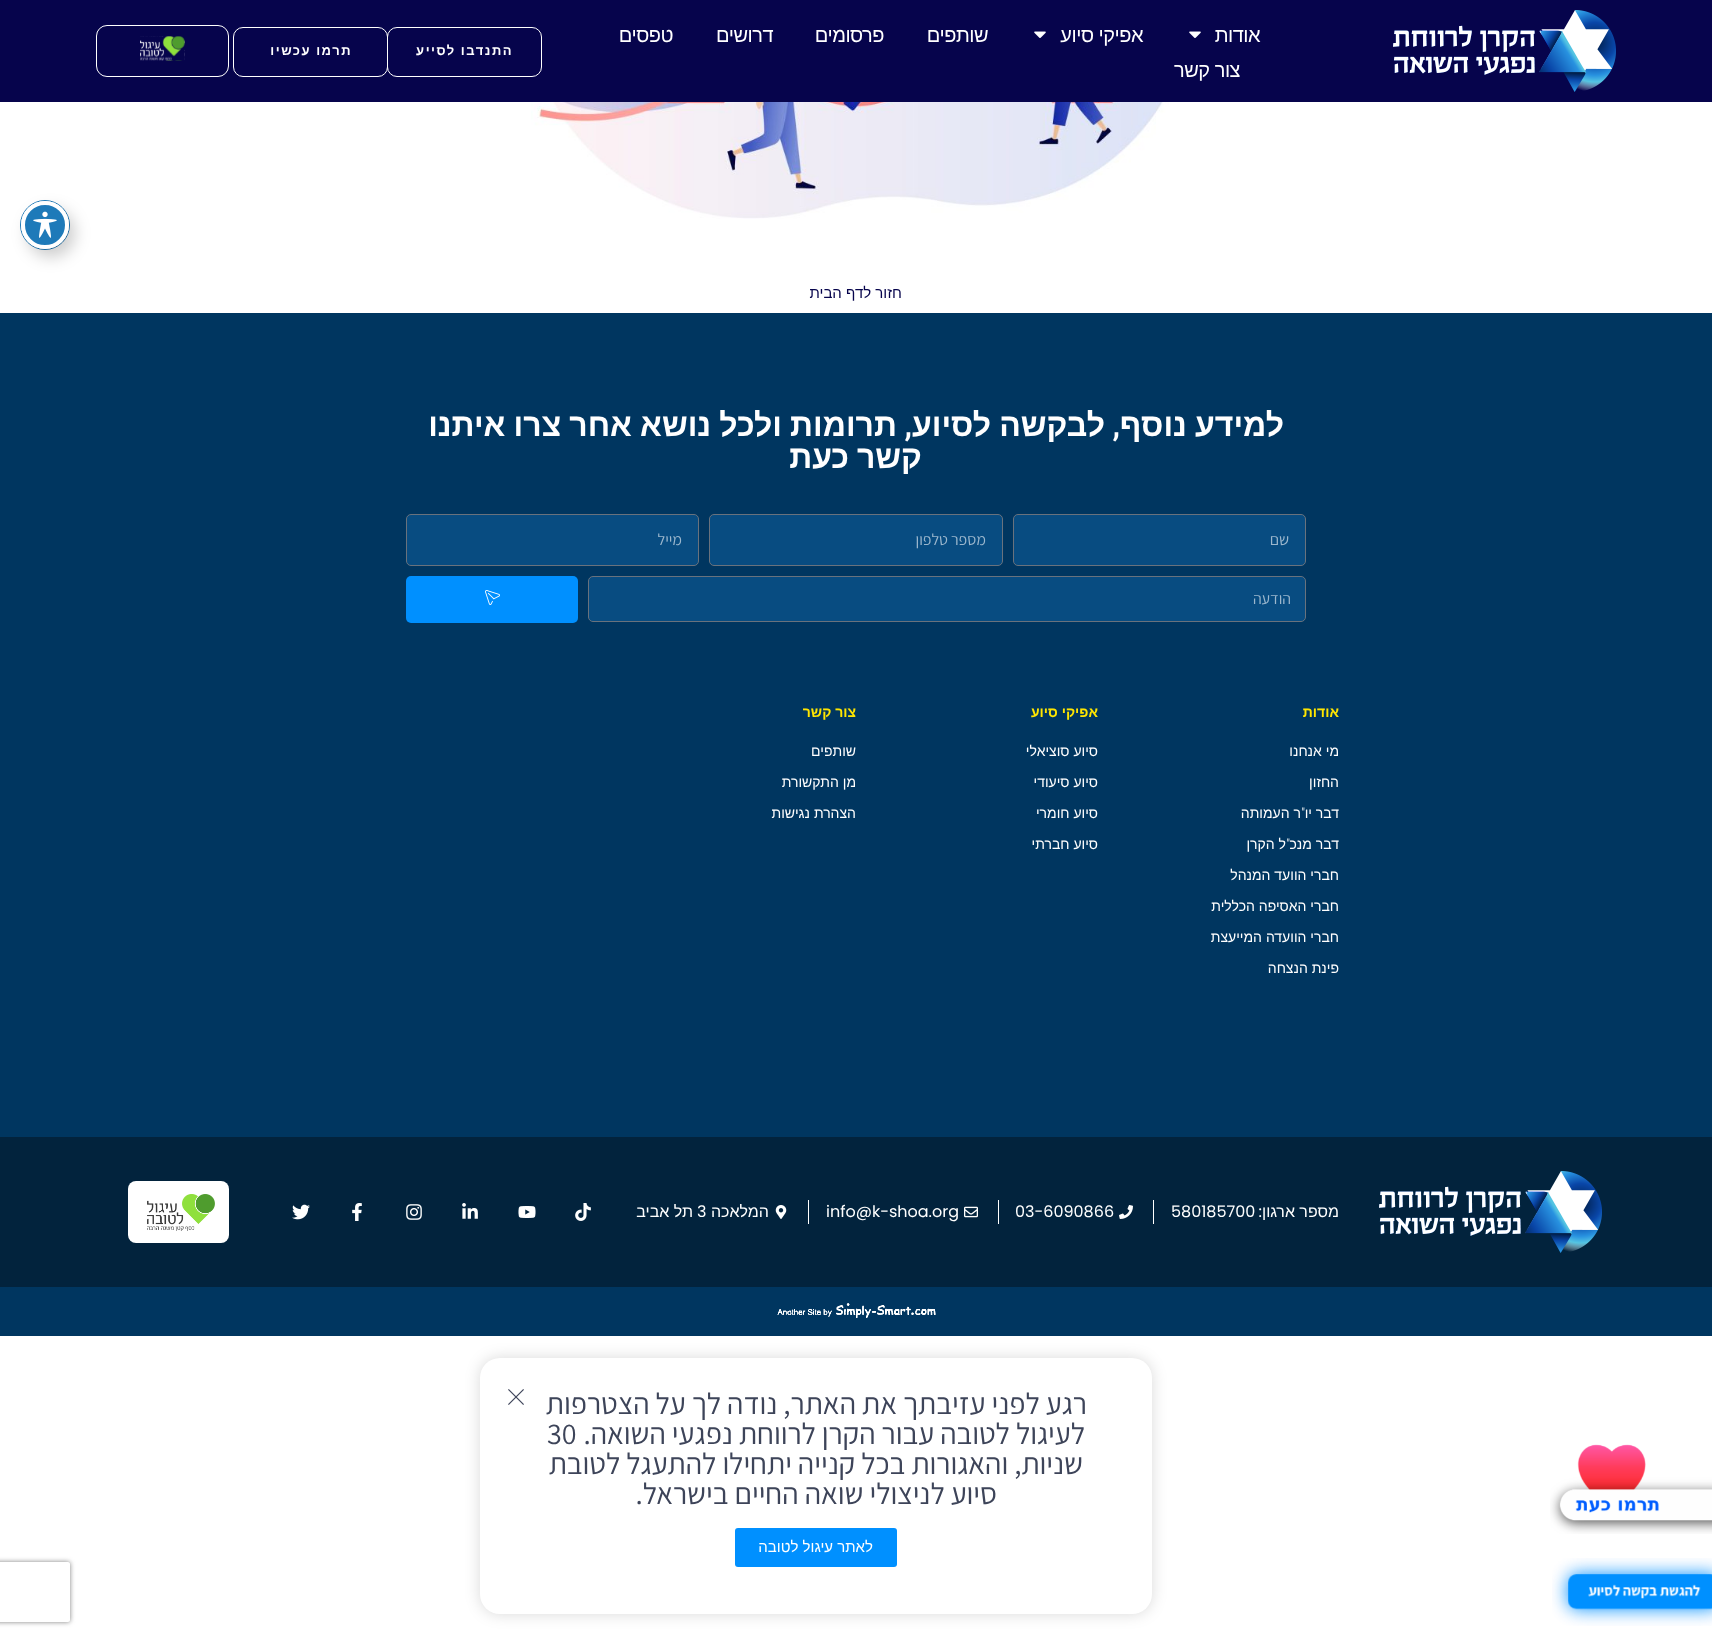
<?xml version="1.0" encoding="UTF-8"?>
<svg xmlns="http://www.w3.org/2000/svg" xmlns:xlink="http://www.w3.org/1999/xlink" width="1712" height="1636">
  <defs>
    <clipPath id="clip1"><path d="M 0 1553 h 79 v 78 h -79 z m -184 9 h 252 c 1 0 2 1 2 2 v 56 c 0 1 -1 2 -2 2 h -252 c -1 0 -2 -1 -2 -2 v -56 c 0 -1 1 -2 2 -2 z" clip-rule="evenodd" /></clipPath>
  </defs>
  <rect width="100%" height="100%" fill="#ffffff" />
  <rect width="1712" height="102" fill="#06044c" />
  <image x="1393" y="10" width="223" height="82" xlink:href="image1.png" />
  <image x="1189" y="31" width="12" height="7" xlink:href="image2.png" />
  <image x="1034" y="31" width="12" height="7" xlink:href="image2.png" />
  <rect x="387.5" y="27.5" width="154" height="49" rx="9.5" fill="none" stroke="#ffffff" />
  <rect x="233.5" y="27.5" width="154" height="49" rx="9.5" fill="none" stroke="#ffffff" />
  <rect x="96.5" y="25.5" width="132" height="51" rx="10.5" fill="none" stroke="#ffffff" />
  <image x="140" y="36" width="45" height="25" xlink:href="image3.png" />
  <circle cx="45" cy="225" r="24.5" fill="none" stroke="#1e7ab9" />
  <rect x="27" y="209" width="48" height="48" rx="24" fill="#000000" fill-opacity="0.2" filter="blur(8px)" />
  <circle cx="45" cy="225" r="22" fill="#1e7ab9" stroke="#ffffff" stroke-width="4" />
  <image x="33" y="211" width="24" height="27" xlink:href="image4.png" />
  <image x="504" y="102" width="715" height="117" xlink:href="image5.png" />
  <rect y="313" width="1712" height="824" fill="#003660" />
  <rect x="1013.5" y="514.5" width="292" height="51" rx="4.5" fill="#084c81" stroke="#69727d" />
  <rect x="709.5" y="514.5" width="293" height="51" rx="4.5" fill="#084c81" stroke="#69727d" />
  <rect x="406.5" y="514.5" width="292" height="51" rx="4.5" fill="#084c81" stroke="#69727d" />
  <rect x="588.5" y="576.5" width="717" height="45" rx="4.5" fill="#084c81" stroke="#69727d" />
  <rect x="406" y="576" width="172" height="47" rx="5" fill="#0090ff" />
  <image x="485" y="590" width="15" height="15" xlink:href="image6.png" />
  <g clip-path="url(#clip1)">
    <rect x="-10" y="1562" width="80" height="60" rx="2" fill="#808080" filter="blur(2.5px)" />
  </g>
  <rect y="1137" width="1712" height="150" fill="#02233d" />
  <image x="1379" y="1171" width="223" height="82" xlink:href="image7.png" />
  <rect x="1153" y="1200" width="1" height="24" fill="#ffffff" />
  <image x="1119" y="1205" width="14" height="14" xlink:href="image8.png" />
  <rect x="998" y="1200" width="1" height="24" fill="#ffffff" />
  <image x="964" y="1206" width="14" height="12" xlink:href="image9.png" />
  <rect x="808" y="1200" width="1" height="24" fill="#ffffff" />
  <image x="775" y="1205" width="12" height="14" xlink:href="image10.png" />
  <image x="575" y="1203" width="16" height="18" xlink:href="image11.png" />
  <image x="518" y="1206" width="18" height="12" xlink:href="image12.png" />
  <image x="462" y="1203" width="16" height="16" xlink:href="image13.png" />
  <image x="406" y="1204" width="16" height="16" xlink:href="image14.png" />
  <image x="352" y="1203" width="10" height="18" xlink:href="image15.png" />
  <image x="292" y="1204" width="18" height="16" xlink:href="image16.png" />
  <image x="128" y="1181" width="101" height="62" xlink:href="image17.png" />
  <rect y="1287" width="1712" height="49" fill="#003660" />
  <image x="777" y="1303" width="159" height="15" xlink:href="image18.png" />
  <image x="1550" y="1444" width="162" height="90" xlink:href="image19.png" />
  <image x="1552" y="1558" width="160" height="68" xlink:href="image20.png" />
  <rect x="480" y="1358" width="672" height="256" rx="20" fill="#000000" fill-opacity="0.15" filter="blur(7.5px)" />
  <rect x="480" y="1358" width="672" height="256" rx="20" fill="#ffffff" />
  <image x="508" y="1389" width="16" height="16" xlink:href="image21.png" />
  <rect x="735" y="1528" width="162" height="39" rx="3" fill="#0090ff" />
  <text x="1260" y="42" style="font-family: Liberation Sans; font-size: 20px; letter-spacing: -0.5px; direction: rtl; fill: #ffffff">אודות</text>
  <text x="1143" y="42" style="font-family: Liberation Sans; font-size: 20px; letter-spacing: -0.5px; direction: rtl; fill: #ffffff">אפיקי סיוע</text>
  <text x="988" y="42" style="font-family: Liberation Sans; font-size: 20px; letter-spacing: -0.5px; direction: rtl; fill: #ffffff">שותפים</text>
  <text x="884" y="42" style="font-family: Liberation Sans; font-size: 20px; letter-spacing: -0.5px; direction: rtl; fill: #ffffff">פרסומים</text>
  <text x="773" y="42" style="font-family: Liberation Sans; font-size: 20px; letter-spacing: -0.5px; direction: rtl; fill: #ffffff">דרושים</text>
  <text x="673" y="42" style="font-family: Liberation Sans; font-size: 20px; letter-spacing: -0.5px; direction: rtl; fill: #ffffff">טפסים</text>
  <text x="1240" y="77" style="font-family: Liberation Sans; font-size: 20px; letter-spacing: -0.5px; direction: rtl; fill: #ffffff">צור קשר</text>
  <text x="513" y="55" style="font-family: Liberation Sans; font-size: 13px; font-weight: bold; letter-spacing: 1.5px; direction: rtl; fill: #ffffff">התנדבו לסייע</text>
  <text x="352" y="55" style="font-family: Liberation Sans; font-size: 13px; font-weight: bold; letter-spacing: 1.5px; direction: rtl; fill: #ffffff">תרמו עכשיו</text>
  <text x="902" y="298" style="font-family: Liberation Sans; font-size: 15px; direction: rtl; fill: #06044c">חזור לדף הבית</text>
  <text x="1284" y="436" word-spacing="-0.75" style="font-family: Liberation Sans; font-size: 32px; font-weight: bold; direction: rtl; fill: #ffffff">למידע נוסף</text>
  <text x="1120" y="436" style="font-family: Roboto; font-size: 32px; font-weight: 600; direction: rtl; fill: #ffffff">,</text>
  <text x="1105" y="436" word-spacing="-0.75" style="font-family: Liberation Sans; font-size: 32px; font-weight: bold; direction: rtl; fill: #ffffff">לבקשה לסיוע</text>
  <text x="912" y="436" style="font-family: Roboto; font-size: 32px; font-weight: 600; direction: rtl; fill: #ffffff">,</text>
  <text x="897" y="436" word-spacing="-0.75" style="font-family: Liberation Sans; font-size: 32px; font-weight: bold; direction: rtl; fill: #ffffff">תרומות ולכל נושא אחר צרו איתנו</text>
  <text x="922" y="468" word-spacing="-1" style="font-family: Liberation Sans; font-size: 32px; font-weight: bold; direction: rtl; fill: #ffffff">קשר כעת</text>
  <text x="1289" y="545" style="font-family: Assistant; font-size: 16px; direction: rtl; fill: #9cb7cd">שם</text>
  <text x="986" y="545" style="font-family: Assistant; font-size: 16px; direction: rtl; fill: #9cb7cd">מספר טלפון</text>
  <text x="682" y="545" style="font-family: Assistant; font-size: 16px; direction: rtl; fill: #9cb7cd">מייל</text>
  <text x="1291" y="604" style="font-family: Assistant; font-size: 16px; direction: rtl; fill: #9cb7cd">הודעה</text>
  <text x="1339" y="717" style="font-family: Liberation Sans; font-size: 14px; font-weight: bold; direction: rtl; fill: #ffe600">אודות</text>
  <text x="1339" y="756" style="font-family: Liberation Sans; font-size: 14px; direction: rtl; fill: #ffffff">מי אנחנו</text>
  <text x="1339" y="787" style="font-family: Liberation Sans; font-size: 14px; direction: rtl; fill: #ffffff">החזון</text>
  <text x="1339" y="818" style="font-family: Liberation Sans; font-size: 14px; direction: rtl; fill: #ffffff">דבר יו</text>
  <text x="1305" y="818" style="font-family: Roboto; font-size: 14px; font-weight: 300; direction: rtl; fill: #ffffff">"</text>
  <text x="1301" y="818" style="font-family: Liberation Sans; font-size: 14px; direction: rtl; fill: #ffffff">ר העמותה</text>
  <text x="1339" y="849" style="font-family: Liberation Sans; font-size: 14px; direction: rtl; fill: #ffffff">דבר מנכ</text>
  <text x="1290" y="849" style="font-family: Roboto; font-size: 14px; font-weight: 300; direction: rtl; fill: #ffffff">"</text>
  <text x="1286" y="849" style="font-family: Liberation Sans; font-size: 14px; direction: rtl; fill: #ffffff">ל הקרן</text>
  <text x="1339" y="880" style="font-family: Liberation Sans; font-size: 14px; direction: rtl; fill: #ffffff">חברי הוועד המנהל</text>
  <text x="1339" y="911" style="font-family: Liberation Sans; font-size: 14px; direction: rtl; fill: #ffffff">חברי האסיפה הכללית</text>
  <text x="1339" y="942" style="font-family: Liberation Sans; font-size: 14px; direction: rtl; fill: #ffffff">חברי הוועדה המייעצת</text>
  <text x="1339" y="973" style="font-family: Liberation Sans; font-size: 14px; direction: rtl; fill: #ffffff">פינת הנצחה</text>
  <text x="1098" y="717" style="font-family: Liberation Sans; font-size: 14px; font-weight: bold; direction: rtl; fill: #ffe600">אפיקי סיוע</text>
  <text x="1098" y="756" style="font-family: Liberation Sans; font-size: 14px; direction: rtl; fill: #ffffff">סיוע סוציאלי</text>
  <text x="1098" y="787" style="font-family: Liberation Sans; font-size: 14px; direction: rtl; fill: #ffffff">סיוע סיעודי</text>
  <text x="1098" y="818" style="font-family: Liberation Sans; font-size: 14px; direction: rtl; fill: #ffffff">סיוע חומרי</text>
  <text x="1098" y="849" style="font-family: Liberation Sans; font-size: 14px; direction: rtl; fill: #ffffff">סיוע חברתי</text>
  <text x="856" y="717" style="font-family: Liberation Sans; font-size: 14px; font-weight: bold; direction: rtl; fill: #ffe600">צור קשר</text>
  <text x="856" y="756" style="font-family: Liberation Sans; font-size: 14px; direction: rtl; fill: #ffffff">שותפים</text>
  <text x="856" y="787" style="font-family: Liberation Sans; font-size: 14px; direction: rtl; fill: #ffffff">מן התקשורת</text>
  <text x="856" y="818" style="font-family: Liberation Sans; font-size: 14px; direction: rtl; fill: #ffffff">הצהרת נגישות</text>
  <text x="1339" y="1217" style="font-family: Liberation Sans; font-size: 16px; direction: rtl; fill: #ffffff">מספר ארגון</text>
  <text x="1262" y="1217" style="font-family: Poppins; font-size: 16px; direction: rtl; fill: #ffffff">:</text>
  <text x="1171" y="1217" style="font-family: Poppins; font-size: 16px; fill: #ffffff">580185700</text>
  <text x="1015" y="1217" style="font-family: Poppins; font-size: 16px; fill: #ffffff">03-6090866</text>
  <text x="826" y="1217" style="font-family: Poppins; font-size: 16px; fill: #ffffff">info@k-shoa.org</text>
  <text x="769" y="1217" style="font-family: Liberation Sans; font-size: 16px; direction: rtl; fill: #ffffff">המלאכה</text>
  <text x="697" y="1217" style="font-family: Poppins; font-size: 16px; fill: #ffffff">3</text>
  <text x="693" y="1217" style="font-family: Liberation Sans; font-size: 16px; direction: rtl; fill: #ffffff">תל אביב</text>
  <text x="1087" y="1414" style="font-family: Assistant; font-size: 30px; direction: rtl; fill: #3d4459">רגע לפני עזיבתך את האתר, נודה לך על הצטרפות</text>
  <text x="1085" y="1444" style="font-family: Assistant; font-size: 30px; direction: rtl; fill: #3d4459">לעיגול לטובה עבור הקרן לרווחת נפגעי השואה.</text>
  <text x="547" y="1444" style="font-family: Assistant; font-size: 30px; fill: #3d4459">30</text>
  <text x="1083" y="1474" style="font-family: Assistant; font-size: 30px; direction: rtl; fill: #3d4459">שניות, והאגורות בכל קנייה יתחילו להתעגל לטובת</text>
  <text x="997" y="1504" style="font-family: Assistant; font-size: 30px; direction: rtl; fill: #3d4459">סיוע לניצולי שואה החיים בישראל.</text>
  <text x="873" y="1552" style="font-family: Liberation Sans; font-size: 15px; direction: rtl; fill: #ffffff">לאתר עיגול לטובה</text>
</svg>
